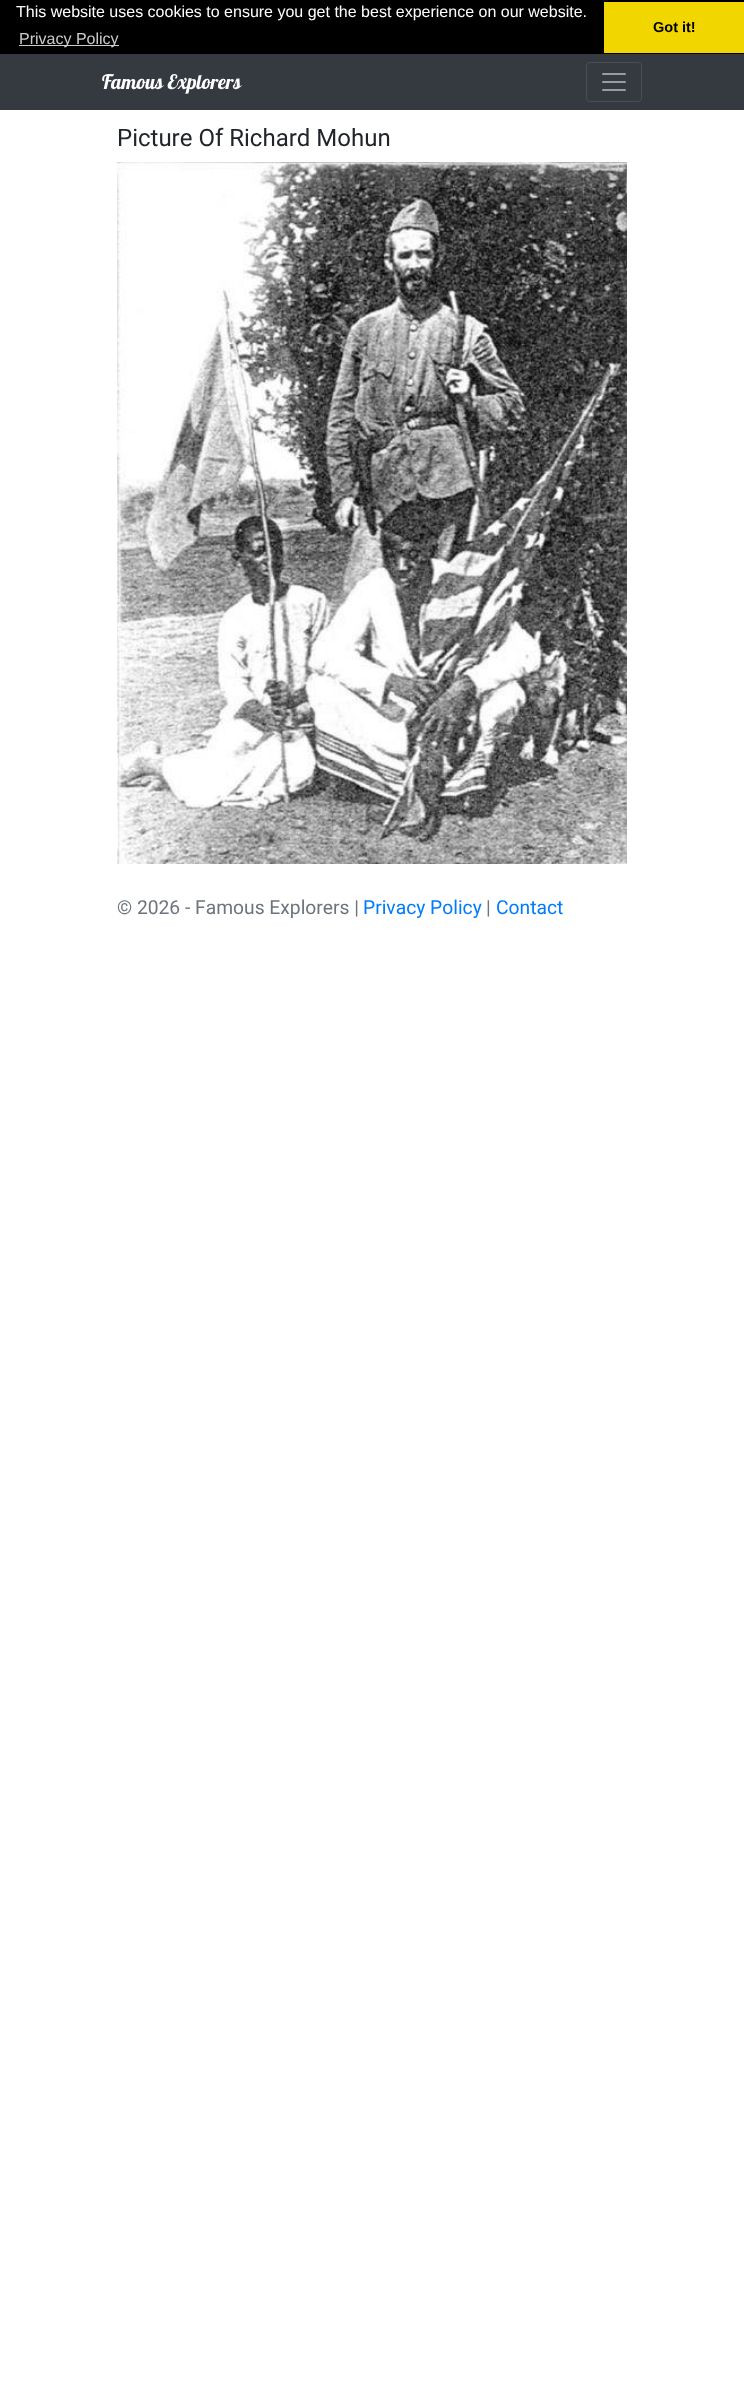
<?xml version="1.0" encoding="UTF-8"?>
<svg xmlns="http://www.w3.org/2000/svg" xmlns:xlink="http://www.w3.org/1999/xlink" width="744" height="2403">
  <style>*{font-kerning:none!important;font-variant-ligatures:none!important}</style>
  <rect width="100%" height="100%" fill="#ffffff" />
  <rect width="744" height="54" fill="#000000" />
  <rect x="19" y="45" width="100" height="1" fill="#cccccc" />
  <rect x="604" y="2" width="140" height="51" fill="#f1d600" />
  <rect y="54" width="744" height="56" fill="#343a40" />
  <rect x="586.5" y="62.5" width="55" height="39" rx="3.5" fill="none" stroke="#484e53" />
  <image x="602" y="73" width="24" height="18" xlink:href="image1.png" />
  <image x="117" y="162" width="510" height="702" xlink:href="image2.png" />
  <text x="16" y="17" style="font-family: Liberation Sans; font-size: 16px; fill: #ffffff">This website uses cookies to ensure you get the best experience on our website.</text>
  <text x="19" y="44" style="font-family: Liberation Sans; font-size: 16px; fill: #cccccc">Privacy Policy</text>
  <text x="653" y="32" style="font-family: Liberation Sans; font-size: 14.5px; font-weight: bold; fill: #000000">Got it!</text>
  <text x="102" y="89" style="font-family: Lobster; font-size: 20px; fill: #ffffff">Famous Explorers</text>
  <text x="117" y="146" style="font-family: Roboto; font-size: 24px; fill: #212529">Picture Of Richard Mohun</text>
  <text x="117" y="914" style="font-family: Roboto; font-size: 19.25px; fill: #6c757d">© 2026 - Famous Explorers |</text>
  <text x="363" y="914" style="font-family: Roboto; font-size: 19.25px; fill: #007bff">Privacy Policy</text>
  <text x="486" y="914" style="font-family: Roboto; font-size: 19.25px; fill: #6c757d">|</text>
  <text x="496" y="914" style="font-family: Roboto; font-size: 19.25px; fill: #007bff">Contact</text>
</svg>
